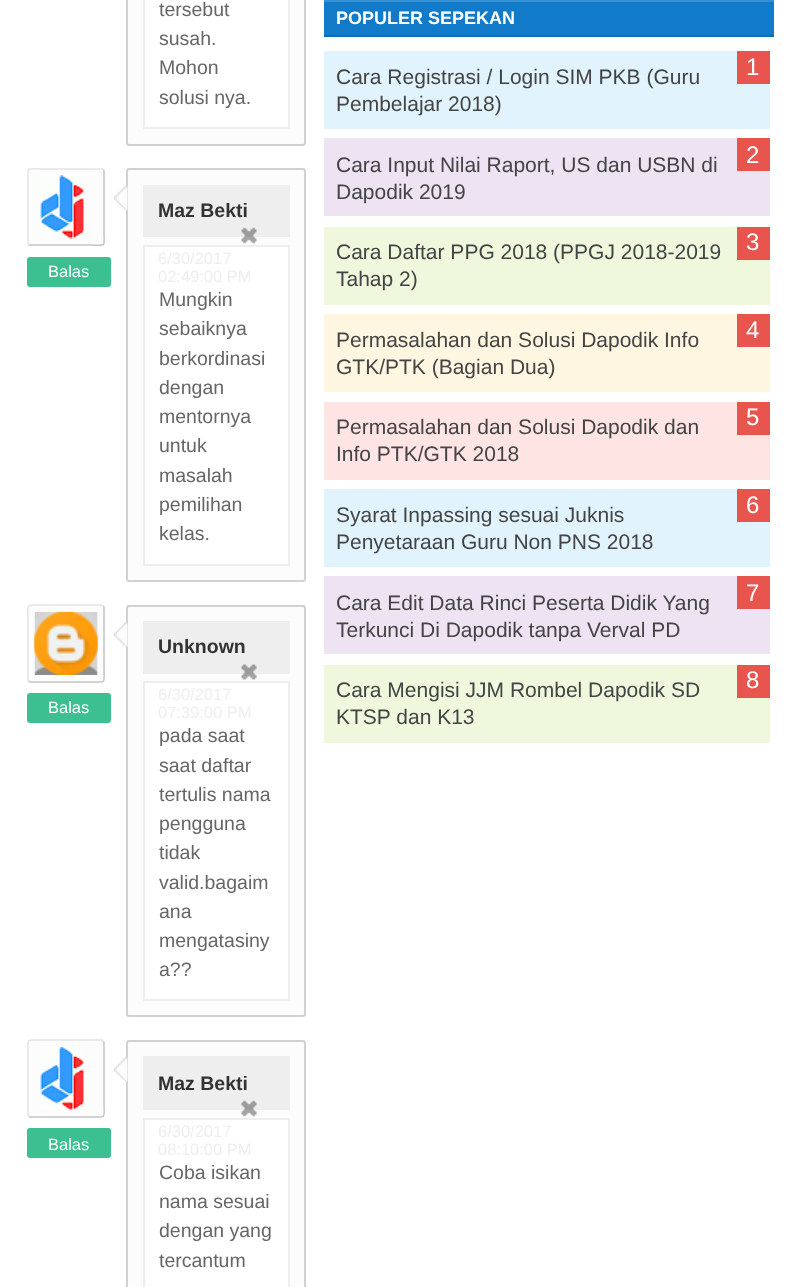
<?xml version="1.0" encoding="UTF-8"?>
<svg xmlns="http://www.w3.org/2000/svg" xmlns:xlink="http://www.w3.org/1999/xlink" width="801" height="1287">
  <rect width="100%" height="100%" fill="#ffffff" />
  <rect x="127" y="-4" width="178" height="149" rx="2" fill="#fcfcfc" stroke="#d1d1d1" stroke-width="2" />
  <rect x="144" y="-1" width="145" height="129" fill="#ffffff" stroke="#eeeeee" stroke-width="2" />
  <rect x="27" y="168" width="78" height="78" rx="3" fill="#fcfcfc" />
  <path d="M 103.5 169.5 l 0.5 1.5 v 60 c 0 17 3 14 -14 14 h -60 l -1.5 -0.5" fill="none" stroke="#c4c4c4" stroke-width="1.5" />
  <path d="M 28.5 244.5 l -0.5 -1.5 v -60 c 0 -17 -3 -14 14 -14 h 60 l 1.5 0.5" fill="none" stroke="#e4e4e4" stroke-width="1.5" />
  <image x="40" y="175" width="44" height="64" xlink:href="image1.png" />
  <image x="59" y="175" width="16" height="64" xlink:href="image2.png" />
  <rect x="27" y="257" width="84" height="30" rx="3" fill="#3cc091" />
  <rect x="127" y="169" width="178" height="412" rx="2" fill="#fcfcfc" stroke="#d1d1d1" stroke-width="2" />
  <image x="114" y="185" width="14" height="26" xlink:href="image3.png" />
  <rect x="143" y="185" width="147" height="52" fill="#eeeeee" />
  <image x="241" y="227" width="16" height="17" xlink:href="image4.png" />
  <rect x="144" y="246" width="145" height="319" fill="#ffffff" stroke="#eeeeee" stroke-width="2" />
  <rect x="27" y="605" width="78" height="78" rx="3" fill="#fcfcfc" />
  <path d="M 103.5 606 l 0.5 1.5 v 60 c 0 17 3 14.5 -14 14.5 h -60 l -1.5 -1" fill="none" stroke="#c4c4c4" stroke-width="1.5" />
  <path d="M 28.5 681 l -0.5 -1.5 v -60 c 0 -17 -3 -14.5 14 -14.5 h 60 l 1.5 1" fill="none" stroke="#e4e4e4" stroke-width="1.5" />
  <image x="34" y="612" width="64" height="63" xlink:href="image5.png" />
  <image x="34" y="612" width="64" height="63" xlink:href="image6.png" />
  <rect x="27" y="693" width="84" height="30" rx="3" fill="#3cc091" />
  <rect x="127" y="606" width="178" height="410" rx="2" fill="#fcfcfc" stroke="#d1d1d1" stroke-width="2" />
  <image x="114" y="621" width="14" height="27" xlink:href="image7.png" />
  <rect x="143" y="621" width="147" height="53" fill="#eeeeee" />
  <image x="241" y="664" width="16" height="16" xlink:href="image8.png" />
  <rect x="144" y="682" width="145" height="318" fill="#ffffff" stroke="#eeeeee" stroke-width="2" />
  <rect x="27" y="1040" width="78" height="78" rx="3" fill="#fcfcfc" />
  <path d="M 103.5 1041 l 0.5 1.5 v 60 c 0 17 3 14.5 -14 14.5 h -60 l -1.5 -1" fill="none" stroke="#c4c4c4" stroke-width="1.5" />
  <path d="M 28.5 1116 l -0.5 -1.5 v -60 c 0 -17 -3 -14.5 14 -14.5 h 60 l 1.5 1" fill="none" stroke="#e4e4e4" stroke-width="1.5" />
  <image x="40" y="1047" width="44" height="63" xlink:href="image9.png" />
  <rect x="27" y="1128" width="84" height="30" rx="3" fill="#3cc091" />
  <rect x="127" y="1041" width="178" height="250" rx="2" fill="#fcfcfc" stroke="#d1d1d1" stroke-width="2" />
  <image x="114" y="1056" width="14" height="27" xlink:href="image7.png" />
  <rect x="143" y="1056" width="147" height="54" fill="#eeeeee" />
  <image x="241" y="1100" width="16" height="17" xlink:href="image4.png" />
  <rect x="144" y="1119" width="145" height="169" fill="#ffffff" stroke="#eeeeee" stroke-width="2" />
  <rect x="324" y="2" width="450" height="33" fill="#117ac9" />
  <rect x="324" width="450" height="2" fill="#3690d4" />
  <rect x="324" y="35" width="450" height="2" fill="#0f6db3" />
  <rect x="324" y="51" width="446" height="78" fill="#e1f3fd" />
  <rect x="737" y="51" width="33" height="33" fill="#e8554e" />
  <rect x="324" y="138" width="446" height="78" fill="#ede3f2" />
  <rect x="737" y="138" width="33" height="33" fill="#e8554e" />
  <rect x="324" y="227" width="446" height="78" fill="#eff8dd" />
  <rect x="737" y="227" width="33" height="33" fill="#e8554e" />
  <rect x="324" y="314" width="446" height="78" fill="#fef6e1" />
  <rect x="737" y="314" width="33" height="33" fill="#e8554e" />
  <rect x="324" y="402" width="446" height="78" fill="#fee4e3" />
  <rect x="737" y="402" width="33" height="33" fill="#e8554e" />
  <rect x="324" y="489" width="446" height="78" fill="#e1f3fd" />
  <rect x="737" y="489" width="33" height="33" fill="#e8554e" />
  <rect x="324" y="576" width="446" height="78" fill="#ede3f2" />
  <rect x="737" y="576" width="33" height="33" fill="#e8554e" />
  <rect x="324" y="665" width="446" height="78" fill="#eff8dd" />
  <rect x="737" y="665" width="33" height="33" fill="#e8554e" />
  <text x="159" y="16" style="font-family: Liberation Sans; font-size: 19.5px; fill: #666666">tersebut</text>
  <text x="159" y="45" style="font-family: Liberation Sans; font-size: 19.5px; fill: #666666">susah.</text>
  <text x="159" y="74" style="font-family: Liberation Sans; font-size: 19.5px; fill: #666666">Mohon</text>
  <text x="159" y="104" style="font-family: Liberation Sans; font-size: 19.5px; fill: #666666">solusi nya.</text>
  <text x="48" y="277" style="font-family: Liberation Sans; font-size: 16.5px; fill: #ffffff">Balas</text>
  <text x="158" y="217" style="font-family: Liberation Sans; font-size: 19.5px; font-weight: bold; fill: #333333">Maz Bekti</text>
  <text x="158" y="264" style="font-family: Liberation Sans; font-size: 16.5px; fill: #eeeeee">6/30/2017</text>
  <text x="158" y="282" style="font-family: Liberation Sans; font-size: 16.5px; fill: #eeeeee">02:49:00 PM</text>
  <text x="159" y="306" style="font-family: Liberation Sans; font-size: 19.5px; fill: #666666">Mungkin</text>
  <text x="159" y="335" style="font-family: Liberation Sans; font-size: 19.5px; fill: #666666">sebaiknya</text>
  <text x="159" y="365" style="font-family: Liberation Sans; font-size: 19.5px; fill: #666666">berkordinasi</text>
  <text x="159" y="394" style="font-family: Liberation Sans; font-size: 19.5px; fill: #666666">dengan</text>
  <text x="159" y="423" style="font-family: Liberation Sans; font-size: 19.5px; fill: #666666">mentornya</text>
  <text x="159" y="452" style="font-family: Liberation Sans; font-size: 19.5px; fill: #666666">untuk</text>
  <text x="159" y="482" style="font-family: Liberation Sans; font-size: 19.5px; fill: #666666">masalah</text>
  <text x="159" y="511" style="font-family: Liberation Sans; font-size: 19.5px; fill: #666666">pemilihan</text>
  <text x="159" y="540" style="font-family: Liberation Sans; font-size: 19.5px; fill: #666666">kelas.</text>
  <text x="48" y="713" style="font-family: Liberation Sans; font-size: 16.5px; fill: #ffffff">Balas</text>
  <text x="158" y="653" style="font-family: Liberation Sans; font-size: 19.5px; font-weight: bold; fill: #333333">Unknown</text>
  <text x="158" y="700" style="font-family: Liberation Sans; font-size: 16.5px; fill: #eeeeee">6/30/2017</text>
  <text x="158" y="718" style="font-family: Liberation Sans; font-size: 16.5px; fill: #eeeeee">07:39:00 PM</text>
  <text x="159" y="742" style="font-family: Liberation Sans; font-size: 19.5px; fill: #666666">pada saat</text>
  <text x="159" y="772" style="font-family: Liberation Sans; font-size: 19.5px; fill: #666666">saat daftar</text>
  <text x="159" y="801" style="font-family: Liberation Sans; font-size: 19.5px; fill: #666666">tertulis nama</text>
  <text x="159" y="830" style="font-family: Liberation Sans; font-size: 19.5px; fill: #666666">pengguna</text>
  <text x="159" y="859" style="font-family: Liberation Sans; font-size: 19.5px; fill: #666666">tidak</text>
  <text x="159" y="889" style="font-family: Liberation Sans; font-size: 19.5px; fill: #666666">valid.bagaim</text>
  <text x="159" y="918" style="font-family: Liberation Sans; font-size: 19.5px; fill: #666666">ana</text>
  <text x="159" y="947" style="font-family: Liberation Sans; font-size: 19.5px; fill: #666666">mengatasiny</text>
  <text x="159" y="976" style="font-family: Liberation Sans; font-size: 19.5px; fill: #666666">a??</text>
  <text x="48" y="1150" style="font-family: Liberation Sans; font-size: 16.5px; fill: #ffffff">Balas</text>
  <text x="158" y="1090" style="font-family: Liberation Sans; font-size: 19.5px; font-weight: bold; fill: #333333">Maz Bekti</text>
  <text x="158" y="1137" style="font-family: Liberation Sans; font-size: 16.5px; fill: #eeeeee">6/30/2017</text>
  <text x="158" y="1155" style="font-family: Liberation Sans; font-size: 16.5px; fill: #eeeeee">08:10:00 PM</text>
  <text x="159" y="1179" style="font-family: Liberation Sans; font-size: 19.5px; fill: #666666">Coba isikan</text>
  <text x="159" y="1208" style="font-family: Liberation Sans; font-size: 19.5px; fill: #666666">nama sesuai</text>
  <text x="159" y="1237" style="font-family: Liberation Sans; font-size: 19.5px; fill: #666666">dengan yang</text>
  <text x="159" y="1267" style="font-family: Liberation Sans; font-size: 19.5px; fill: #666666">tercantum</text>
  <text x="336" y="24" style="font-family: Liberation Sans; font-size: 18px; font-weight: bold; fill: #ffffff">POPULER SEPEKAN</text>
  <text x="336" y="84" style="font-family: Liberation Sans; font-size: 21px; fill: #444444">Cara Registrasi / Login SIM PKB (Guru</text>
  <text x="746" y="75" style="font-family: Liberation Sans; font-size: 24px; fill: #ffffff">1</text>
  <text x="336" y="111" style="font-family: Liberation Sans; font-size: 21px; fill: #444444">Pembelajar 2018)</text>
  <text x="336" y="172" style="font-family: Liberation Sans; font-size: 21px; fill: #444444">Cara Input Nilai Raport, US dan USBN di</text>
  <text x="746" y="163" style="font-family: Liberation Sans; font-size: 24px; fill: #ffffff">2</text>
  <text x="336" y="199" style="font-family: Liberation Sans; font-size: 21px; fill: #444444">Dapodik 2019</text>
  <text x="336" y="259" style="font-family: Liberation Sans; font-size: 21px; fill: #444444">Cara Daftar PPG 2018 (PPGJ 2018-2019</text>
  <text x="746" y="250" style="font-family: Liberation Sans; font-size: 24px; fill: #ffffff">3</text>
  <text x="336" y="286" style="font-family: Liberation Sans; font-size: 21px; fill: #444444">Tahap 2)</text>
  <text x="336" y="347" style="font-family: Liberation Sans; font-size: 21px; fill: #444444">Permasalahan dan Solusi Dapodik Info</text>
  <text x="746" y="338" style="font-family: Liberation Sans; font-size: 24px; fill: #ffffff">4</text>
  <text x="336" y="374" style="font-family: Liberation Sans; font-size: 21px; fill: #444444">GTK/PTK (Bagian Dua)</text>
  <text x="336" y="434" style="font-family: Liberation Sans; font-size: 21px; fill: #444444">Permasalahan dan Solusi Dapodik dan</text>
  <text x="746" y="425" style="font-family: Liberation Sans; font-size: 24px; fill: #ffffff">5</text>
  <text x="336" y="461" style="font-family: Liberation Sans; font-size: 21px; fill: #444444">Info PTK/GTK 2018</text>
  <text x="336" y="522" style="font-family: Liberation Sans; font-size: 21px; fill: #444444">Syarat Inpassing sesuai Juknis</text>
  <text x="746" y="513" style="font-family: Liberation Sans; font-size: 24px; fill: #ffffff">6</text>
  <text x="336" y="549" style="font-family: Liberation Sans; font-size: 21px; fill: #444444">Penyetaraan Guru Non PNS 2018</text>
  <text x="336" y="610" style="font-family: Liberation Sans; font-size: 21px; fill: #444444">Cara Edit Data Rinci Peserta Didik Yang</text>
  <text x="746" y="601" style="font-family: Liberation Sans; font-size: 24px; fill: #ffffff">7</text>
  <text x="336" y="637" style="font-family: Liberation Sans; font-size: 21px; fill: #444444">Terkunci Di Dapodik tanpa Verval PD</text>
  <text x="336" y="697" style="font-family: Liberation Sans; font-size: 21px; fill: #444444">Cara Mengisi JJM Rombel Dapodik SD</text>
  <text x="746" y="688" style="font-family: Liberation Sans; font-size: 24px; fill: #ffffff">8</text>
  <text x="336" y="724" style="font-family: Liberation Sans; font-size: 21px; fill: #444444">KTSP dan K13</text>
</svg>
